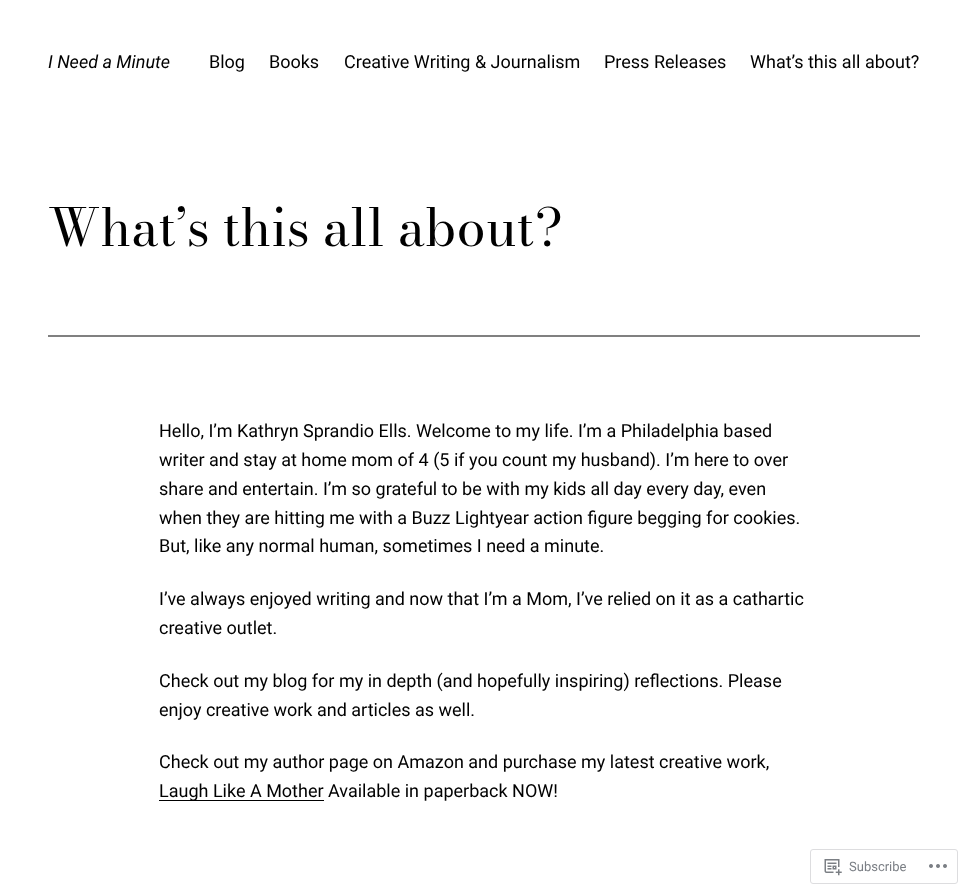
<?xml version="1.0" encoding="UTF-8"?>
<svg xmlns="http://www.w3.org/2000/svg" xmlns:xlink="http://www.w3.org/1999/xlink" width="968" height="894">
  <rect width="100%" height="100%" fill="#ffffff" />
  <rect x="48" y="335" width="872" height="2" fill="#808080" />
  <rect x="159" y="800" width="165" height="1" fill="#000000" />
  <rect x="810.5" y="849.5" width="147" height="34" rx="2.5" fill="none" stroke="#dddddf" />
  <image x="824" y="859" width="18" height="17" xlink:href="image1.png" />
  <image x="929" y="864" width="18" height="4" xlink:href="image2.png" />
  <text x="48" y="68" style="font-family: Roboto; font-size: 18px; font-style: italic; fill: #000000">I Need a Minute</text>
  <text x="209" y="68" style="font-family: Roboto; font-size: 18px; fill: #000000">Blog</text>
  <text x="269" y="68" style="font-family: Roboto; font-size: 18px; fill: #000000">Books</text>
  <text x="344" y="68" style="font-family: Roboto; font-size: 18px; fill: #000000">Creative Writing &amp; Journalism</text>
  <text x="604" y="68" style="font-family: Roboto; font-size: 18px; fill: #000000">Press Releases</text>
  <text x="750" y="68" style="font-family: Roboto; font-size: 18px; fill: #000000">What’s this all about?</text>
  <text x="48" y="246" style="font-family: Bodoni Moda; font-size: 52px; fill: #000000">What’s this all about?</text>
  <text x="159" y="437" style="font-family: Roboto; font-size: 18px; fill: #000000">Hello, I’m Kathryn Sprandio Ells. Welcome to my life. I’m a Philadelphia based</text>
  <text x="159" y="466" style="font-family: Roboto; font-size: 18px; fill: #000000">writer and stay at home mom of 4 (5 if you count my husband). I’m here to over</text>
  <text x="159" y="495" style="font-family: Roboto; font-size: 18px; fill: #000000">share and entertain. I’m so grateful to be with my kids all day every day, even</text>
  <text x="159" y="524" style="font-family: Roboto; font-size: 18px; fill: #000000">when they are hitting me with a Buzz Lightyear action figure begging for cookies.</text>
  <text x="159" y="552" style="font-family: Roboto; font-size: 18px; fill: #000000">But, like any normal human, sometimes I need a minute.</text>
  <text x="159" y="605" style="font-family: Roboto; font-size: 18px; fill: #000000">I’ve always enjoyed writing and now that I’m a Mom, I’ve relied on it as a cathartic</text>
  <text x="159" y="634" style="font-family: Roboto; font-size: 18px; fill: #000000">creative outlet.</text>
  <text x="159" y="687" style="font-family: Roboto; font-size: 18px; fill: #000000">Check out my blog for my in depth (and hopefully inspiring) reflections. Please</text>
  <text x="159" y="716" style="font-family: Roboto; font-size: 18px; fill: #000000">enjoy creative work and articles as well.</text>
  <text x="159" y="768" style="font-family: Roboto; font-size: 18px; fill: #000000">Check out my author page on Amazon and purchase my latest creative work,</text>
  <text x="159" y="797" style="font-family: Roboto; font-size: 18px; fill: #000000">Laugh Like A Mother Available in paperback NOW!</text>
  <text x="849" y="871" style="font-family: Roboto; font-size: 13px; fill: #7b7f85">Subscribe</text>
</svg>
